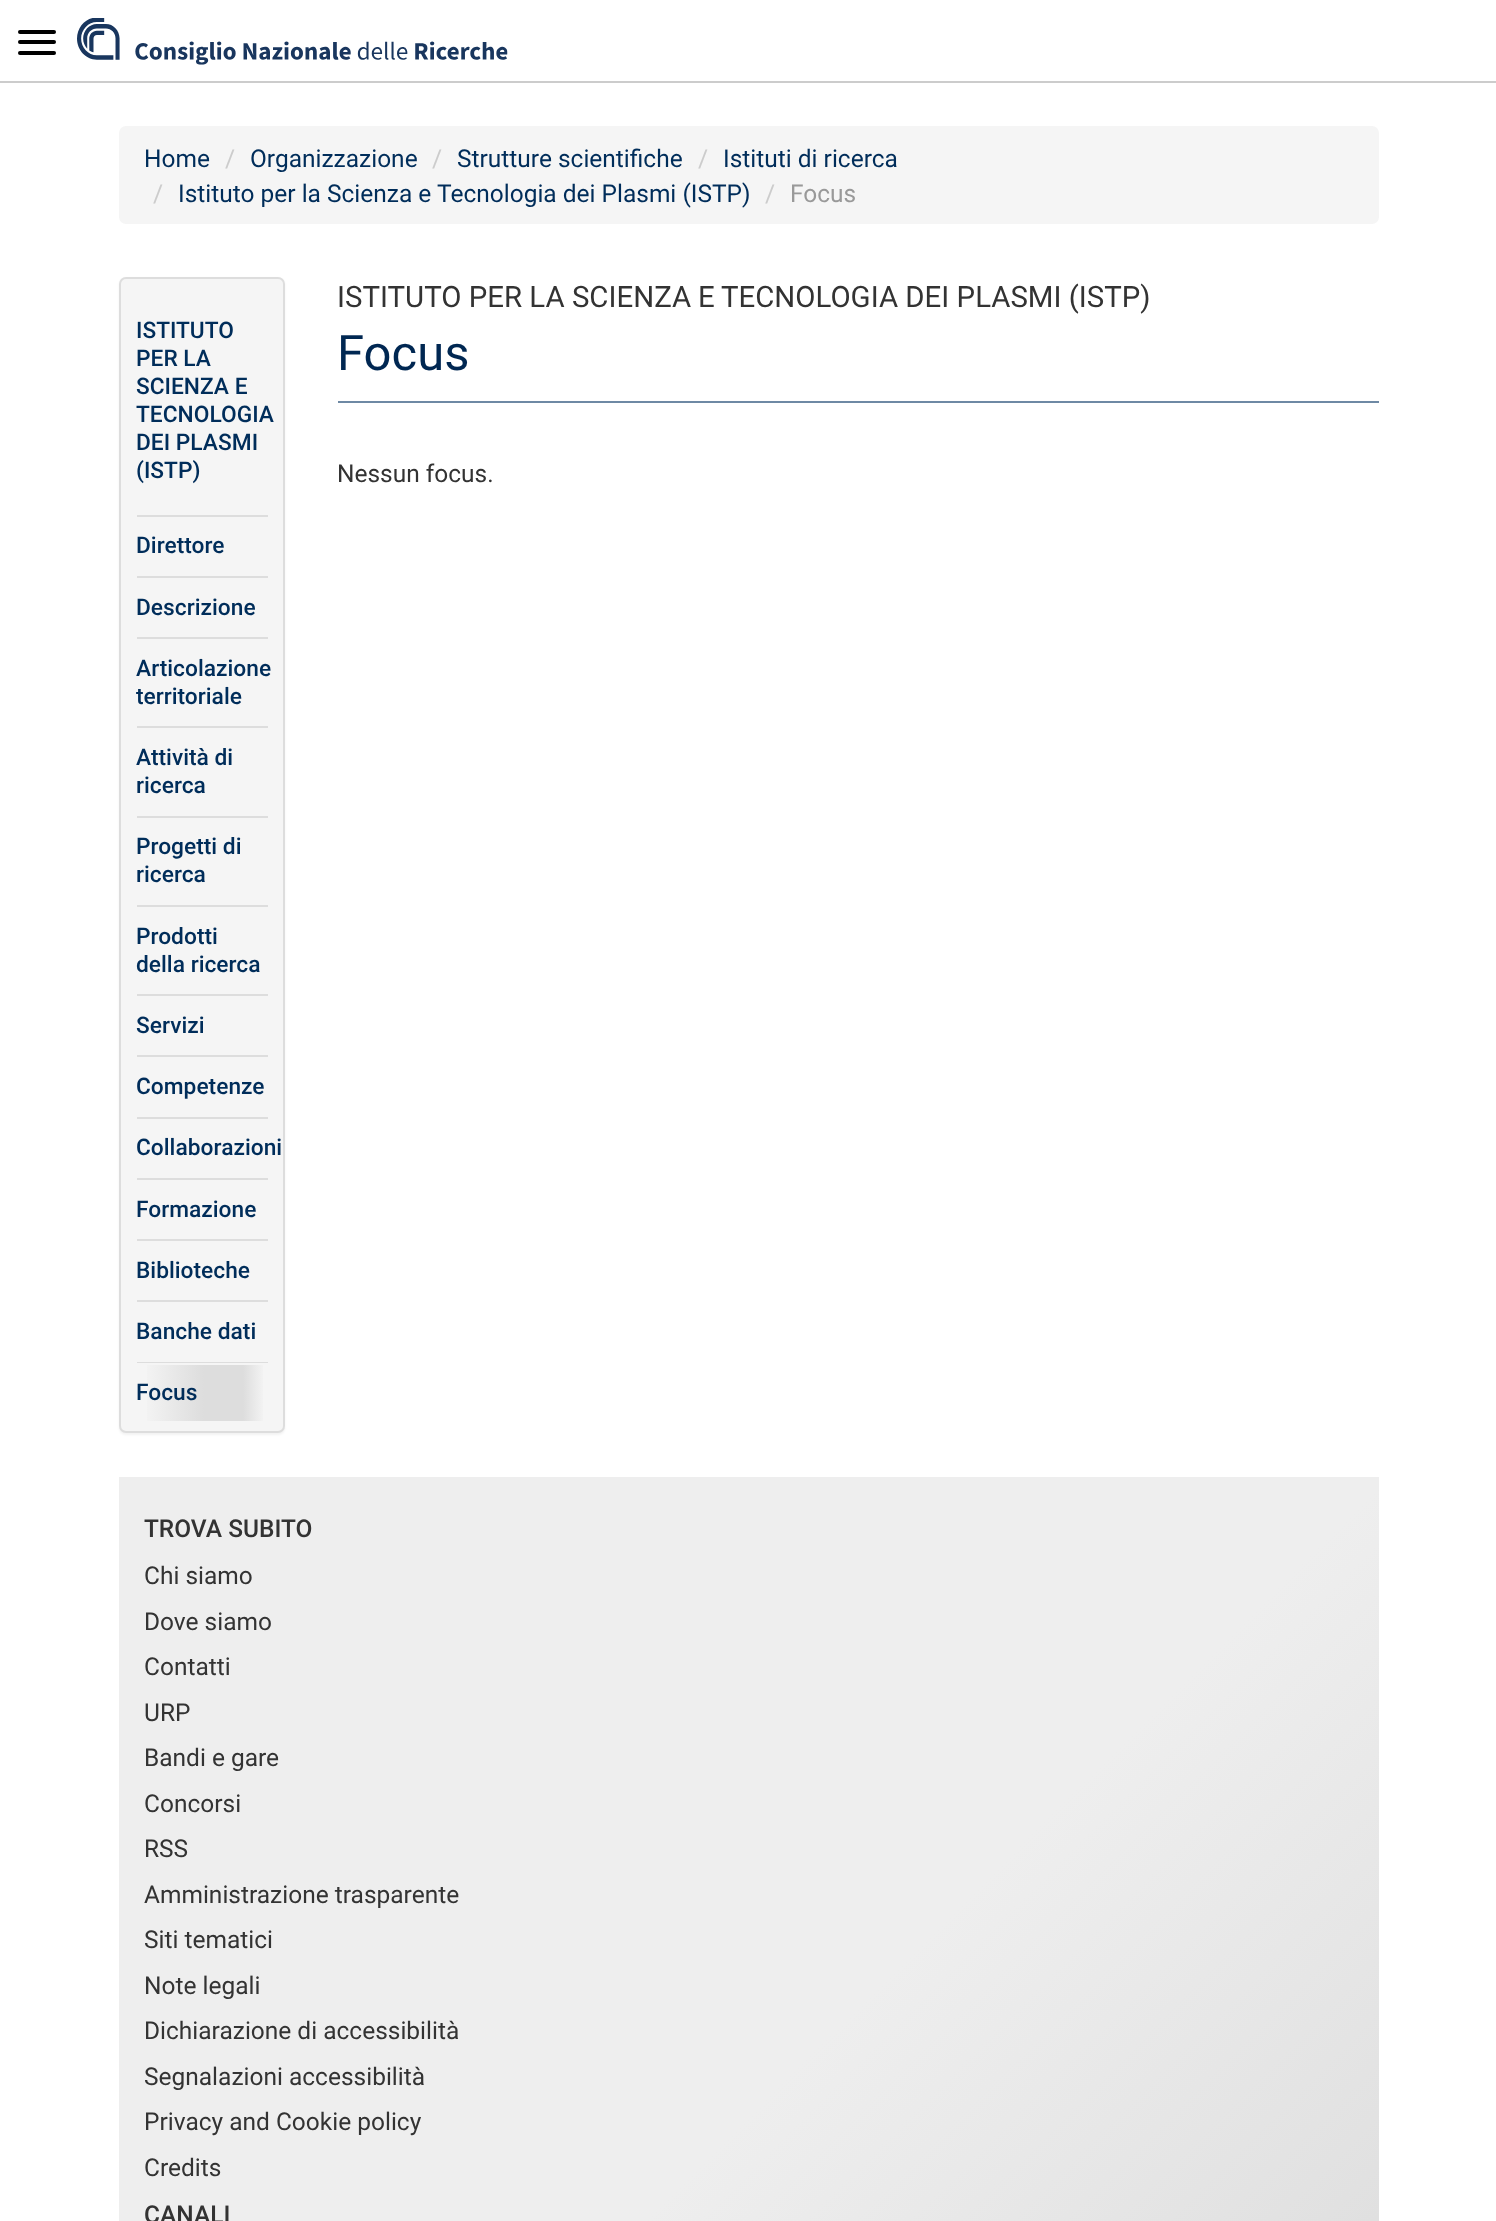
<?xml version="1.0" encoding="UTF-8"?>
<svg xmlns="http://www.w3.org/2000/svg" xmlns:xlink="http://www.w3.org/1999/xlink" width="1496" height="2221">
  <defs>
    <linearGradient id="g1" gradientUnits="userSpaceOnUse" x1="137" y1="1393" x2="268" y2="1393"><stop offset="0.03" stop-color="#f5f5f5" /><stop offset="0.51" stop-color="#dddddd" /><stop offset="0.81" stop-color="#dddddd" /><stop offset="0.98" stop-color="#f5f5f5" /></linearGradient>
    <linearGradient id="g2" gradientUnits="userSpaceOnUse" x1="28" y1="1568" x2="1470" y2="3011"><stop offset="0.44" stop-color="#eeeeee" /><stop offset="1" stop-color="#cfcfcf" /></linearGradient>
  </defs>
  <rect width="100%" height="100%" fill="#ffffff" />
  <rect y="81" width="1496" height="2" fill="#cccccc" />
  <image x="77" y="18" width="431" height="47" xlink:href="image1.png" />
  <rect x="18" y="30" width="38" height="4" rx="2" fill="#000000" />
  <rect x="18" y="40" width="38" height="4" rx="2" fill="#000000" />
  <rect x="18" y="51" width="38" height="4" rx="2" fill="#000000" />
  <rect x="119" y="126" width="1260" height="98" rx="7" fill="#f5f5f5" />
  <rect x="119" y="278" width="166" height="1157" rx="7" fill="#000000" fill-opacity="0.05" filter="blur(1px)" />
  <rect x="120" y="278" width="164" height="1154" rx="6" fill="#f5f5f5" stroke="#dddddd" stroke-width="2" />
  <rect x="137" y="515" width="131" height="2" fill="#dddddd" />
  <rect x="137" y="576" width="131" height="2" fill="#dddddd" />
  <rect x="137" y="637" width="131" height="2" fill="#dddddd" />
  <rect x="137" y="726" width="131" height="2" fill="#dddddd" />
  <rect x="137" y="816" width="131" height="2" fill="#dddddd" />
  <rect x="137" y="905" width="131" height="2" fill="#dddddd" />
  <rect x="137" y="994" width="131" height="2" fill="#dddddd" />
  <rect x="137" y="1055" width="131" height="2" fill="#dddddd" />
  <rect x="137" y="1117" width="131" height="2" fill="#dddddd" />
  <rect x="137" y="1178" width="131" height="2" fill="#dddddd" />
  <rect x="137" y="1239" width="131" height="2" fill="#dddddd" />
  <rect x="137" y="1300" width="131" height="2" fill="#dddddd" />
  <rect x="137" y="1362" width="131" height="1" fill="#dddddd" />
  <rect x="147" y="1365" width="116" height="56" fill="url(#g1)" />
  <rect x="338" y="401" width="1041" height="2" fill="#6e89a4" />
  <rect x="119" y="1477" width="1260" height="744" fill="url(#g2)" />
  <text x="144" y="167" style="font-family: Roboto; font-size: 24.5px; fill: #002d5a">Home</text>
  <text x="225" y="167" style="font-family: Roboto; font-size: 24.5px; fill: #cccccc">/</text>
  <text x="250" y="167" style="font-family: Roboto; font-size: 24.5px; fill: #002d5a">Organizzazione</text>
  <text x="432" y="167" style="font-family: Roboto; font-size: 24.5px; fill: #cccccc">/</text>
  <text x="457" y="167" style="font-family: Roboto; font-size: 24.5px; fill: #002d5a">Strutture scientifiche</text>
  <text x="698" y="167" style="font-family: Roboto; font-size: 24.5px; fill: #cccccc">/</text>
  <text x="723" y="167" style="font-family: Roboto; font-size: 24.5px; fill: #002d5a">Istituti di ricerca</text>
  <text x="153" y="202" style="font-family: Roboto; font-size: 24.5px; fill: #cccccc">/</text>
  <text x="178" y="202" style="font-family: Roboto; font-size: 24.5px; fill: #002d5a">Istituto per la Scienza e</text>
  <text x="437" y="202" style="font-family: Roboto; font-size: 24.5px; fill: #002d5a">Tecnologia dei Plasmi (ISTP)</text>
  <text x="765" y="202" style="font-family: Roboto; font-size: 24.5px; fill: #cccccc">/</text>
  <text x="790" y="202" style="font-family: Roboto; font-size: 24.5px; fill: #999999">Focus</text>
  <text x="136" y="338" style="font-family: Roboto; font-size: 22.75px; font-weight: 500; fill: #002d5a">ISTITUTO</text>
  <text x="136" y="366" style="font-family: Roboto; font-size: 22.75px; font-weight: 500; fill: #002d5a">PER LA</text>
  <text x="136" y="394" style="font-family: Roboto; font-size: 22.75px; font-weight: 500; fill: #002d5a">SCIENZA E</text>
  <text x="136" y="422" style="font-family: Roboto; font-size: 22.75px; font-weight: 500; fill: #002d5a">TECNOLOGIA</text>
  <text x="136" y="450" style="font-family: Roboto; font-size: 22.75px; font-weight: 500; fill: #002d5a">DEI PLASMI</text>
  <text x="136" y="478" style="font-family: Roboto; font-size: 22.75px; font-weight: 500; fill: #002d5a">(ISTP)</text>
  <text x="136" y="553" style="font-family: Roboto; font-size: 22.75px; font-weight: 500; fill: #002d5a">Direttore</text>
  <text x="136" y="615" style="font-family: Roboto; font-size: 22.75px; font-weight: 500; fill: #002d5a">Descrizione</text>
  <text x="136" y="676" style="font-family: Roboto; font-size: 22.75px; font-weight: 500; fill: #002d5a">Articolazione</text>
  <text x="136" y="704" style="font-family: Roboto; font-size: 22.75px; font-weight: 500; fill: #002d5a">territoriale</text>
  <text x="136" y="765" style="font-family: Roboto; font-size: 22.75px; font-weight: 500; fill: #002d5a">Attività di</text>
  <text x="136" y="793" style="font-family: Roboto; font-size: 22.75px; font-weight: 500; fill: #002d5a">ricerca</text>
  <text x="136" y="854" style="font-family: Roboto; font-size: 22.75px; font-weight: 500; fill: #002d5a">Progetti di</text>
  <text x="136" y="882" style="font-family: Roboto; font-size: 22.75px; font-weight: 500; fill: #002d5a">ricerca</text>
  <text x="136" y="944" style="font-family: Roboto; font-size: 22.75px; font-weight: 500; fill: #002d5a">Prodotti</text>
  <text x="136" y="972" style="font-family: Roboto; font-size: 22.75px; font-weight: 500; fill: #002d5a">della ricerca</text>
  <text x="136" y="1033" style="font-family: Roboto; font-size: 22.75px; font-weight: 500; fill: #002d5a">Servizi</text>
  <text x="136" y="1094" style="font-family: Roboto; font-size: 22.75px; font-weight: 500; fill: #002d5a">Competenze</text>
  <text x="136" y="1155" style="font-family: Roboto; font-size: 22.75px; font-weight: 500; fill: #002d5a">Collaborazioni</text>
  <text x="136" y="1217" style="font-family: Roboto; font-size: 22.75px; font-weight: 500; fill: #002d5a">Formazione</text>
  <text x="136" y="1278" style="font-family: Roboto; font-size: 22.75px; font-weight: 500; fill: #002d5a">Biblioteche</text>
  <text x="136" y="1339" style="font-family: Roboto; font-size: 22.75px; font-weight: 500; fill: #002d5a">Banche dati</text>
  <text x="136" y="1400" style="font-family: Roboto; font-size: 22.75px; font-weight: 500; fill: #002d5a">Focus</text>
  <text x="337" y="307" style="font-family: Roboto; font-size: 29.4px; fill: #333333">ISTITUTO PER LA SCIENZA</text>
  <text x="698" y="307" style="font-family: Roboto; font-size: 29.4px; fill: #333333">E</text>
  <text x="721" y="307" style="font-family: Roboto; font-size: 29.4px; fill: #333333">TECNOLOGIA DEI PLASMI (ISTP)</text>
  <text x="337" y="370" style="font-family: Roboto; font-size: 49px; fill: #002752">Focus</text>
  <text x="337" y="482" style="font-family: Roboto; font-size: 24.5px; fill: #333333">Nessun focus.</text>
  <text x="144" y="1537" style="font-family: Roboto; font-size: 24.5px; font-weight: 500; fill: #333333">TROVA SUBITO</text>
  <text x="144" y="1584" style="font-family: Roboto; font-size: 24.5px; fill: #333333">Chi siamo</text>
  <text x="144" y="1630" style="font-family: Roboto; font-size: 24.5px; fill: #333333">Dove siamo</text>
  <text x="144" y="1675" style="font-family: Roboto; font-size: 24.5px; fill: #333333">Contatti</text>
  <text x="144" y="1721" style="font-family: Roboto; font-size: 24.5px; fill: #333333">URP</text>
  <text x="144" y="1766" style="font-family: Roboto; font-size: 24.5px; fill: #333333">Bandi e gare</text>
  <text x="144" y="1812" style="font-family: Roboto; font-size: 24.5px; fill: #333333">Concorsi</text>
  <text x="144" y="1857" style="font-family: Roboto; font-size: 24.5px; fill: #333333">RSS</text>
  <text x="144" y="1903" style="font-family: Roboto; font-size: 24.5px; fill: #333333">Amministrazione trasparente</text>
  <text x="144" y="1948" style="font-family: Roboto; font-size: 24.5px; fill: #333333">Siti tematici</text>
  <text x="144" y="1994" style="font-family: Roboto; font-size: 24.5px; fill: #333333">Note legali</text>
  <text x="144" y="2039" style="font-family: Roboto; font-size: 24.5px; fill: #333333">Dichiarazione di accessibilità</text>
  <text x="144" y="2085" style="font-family: Roboto; font-size: 24.5px; fill: #333333">Segnalazioni accessibilità</text>
  <text x="144" y="2130" style="font-family: Roboto; font-size: 24.5px; fill: #333333">Privacy and Cookie policy</text>
  <text x="144" y="2176" style="font-family: Roboto; font-size: 24.5px; fill: #333333">Credits</text>
  <text x="144" y="2223" style="font-family: Roboto; font-size: 24.5px; font-weight: 500; fill: #333333">CANALI</text>
</svg>
